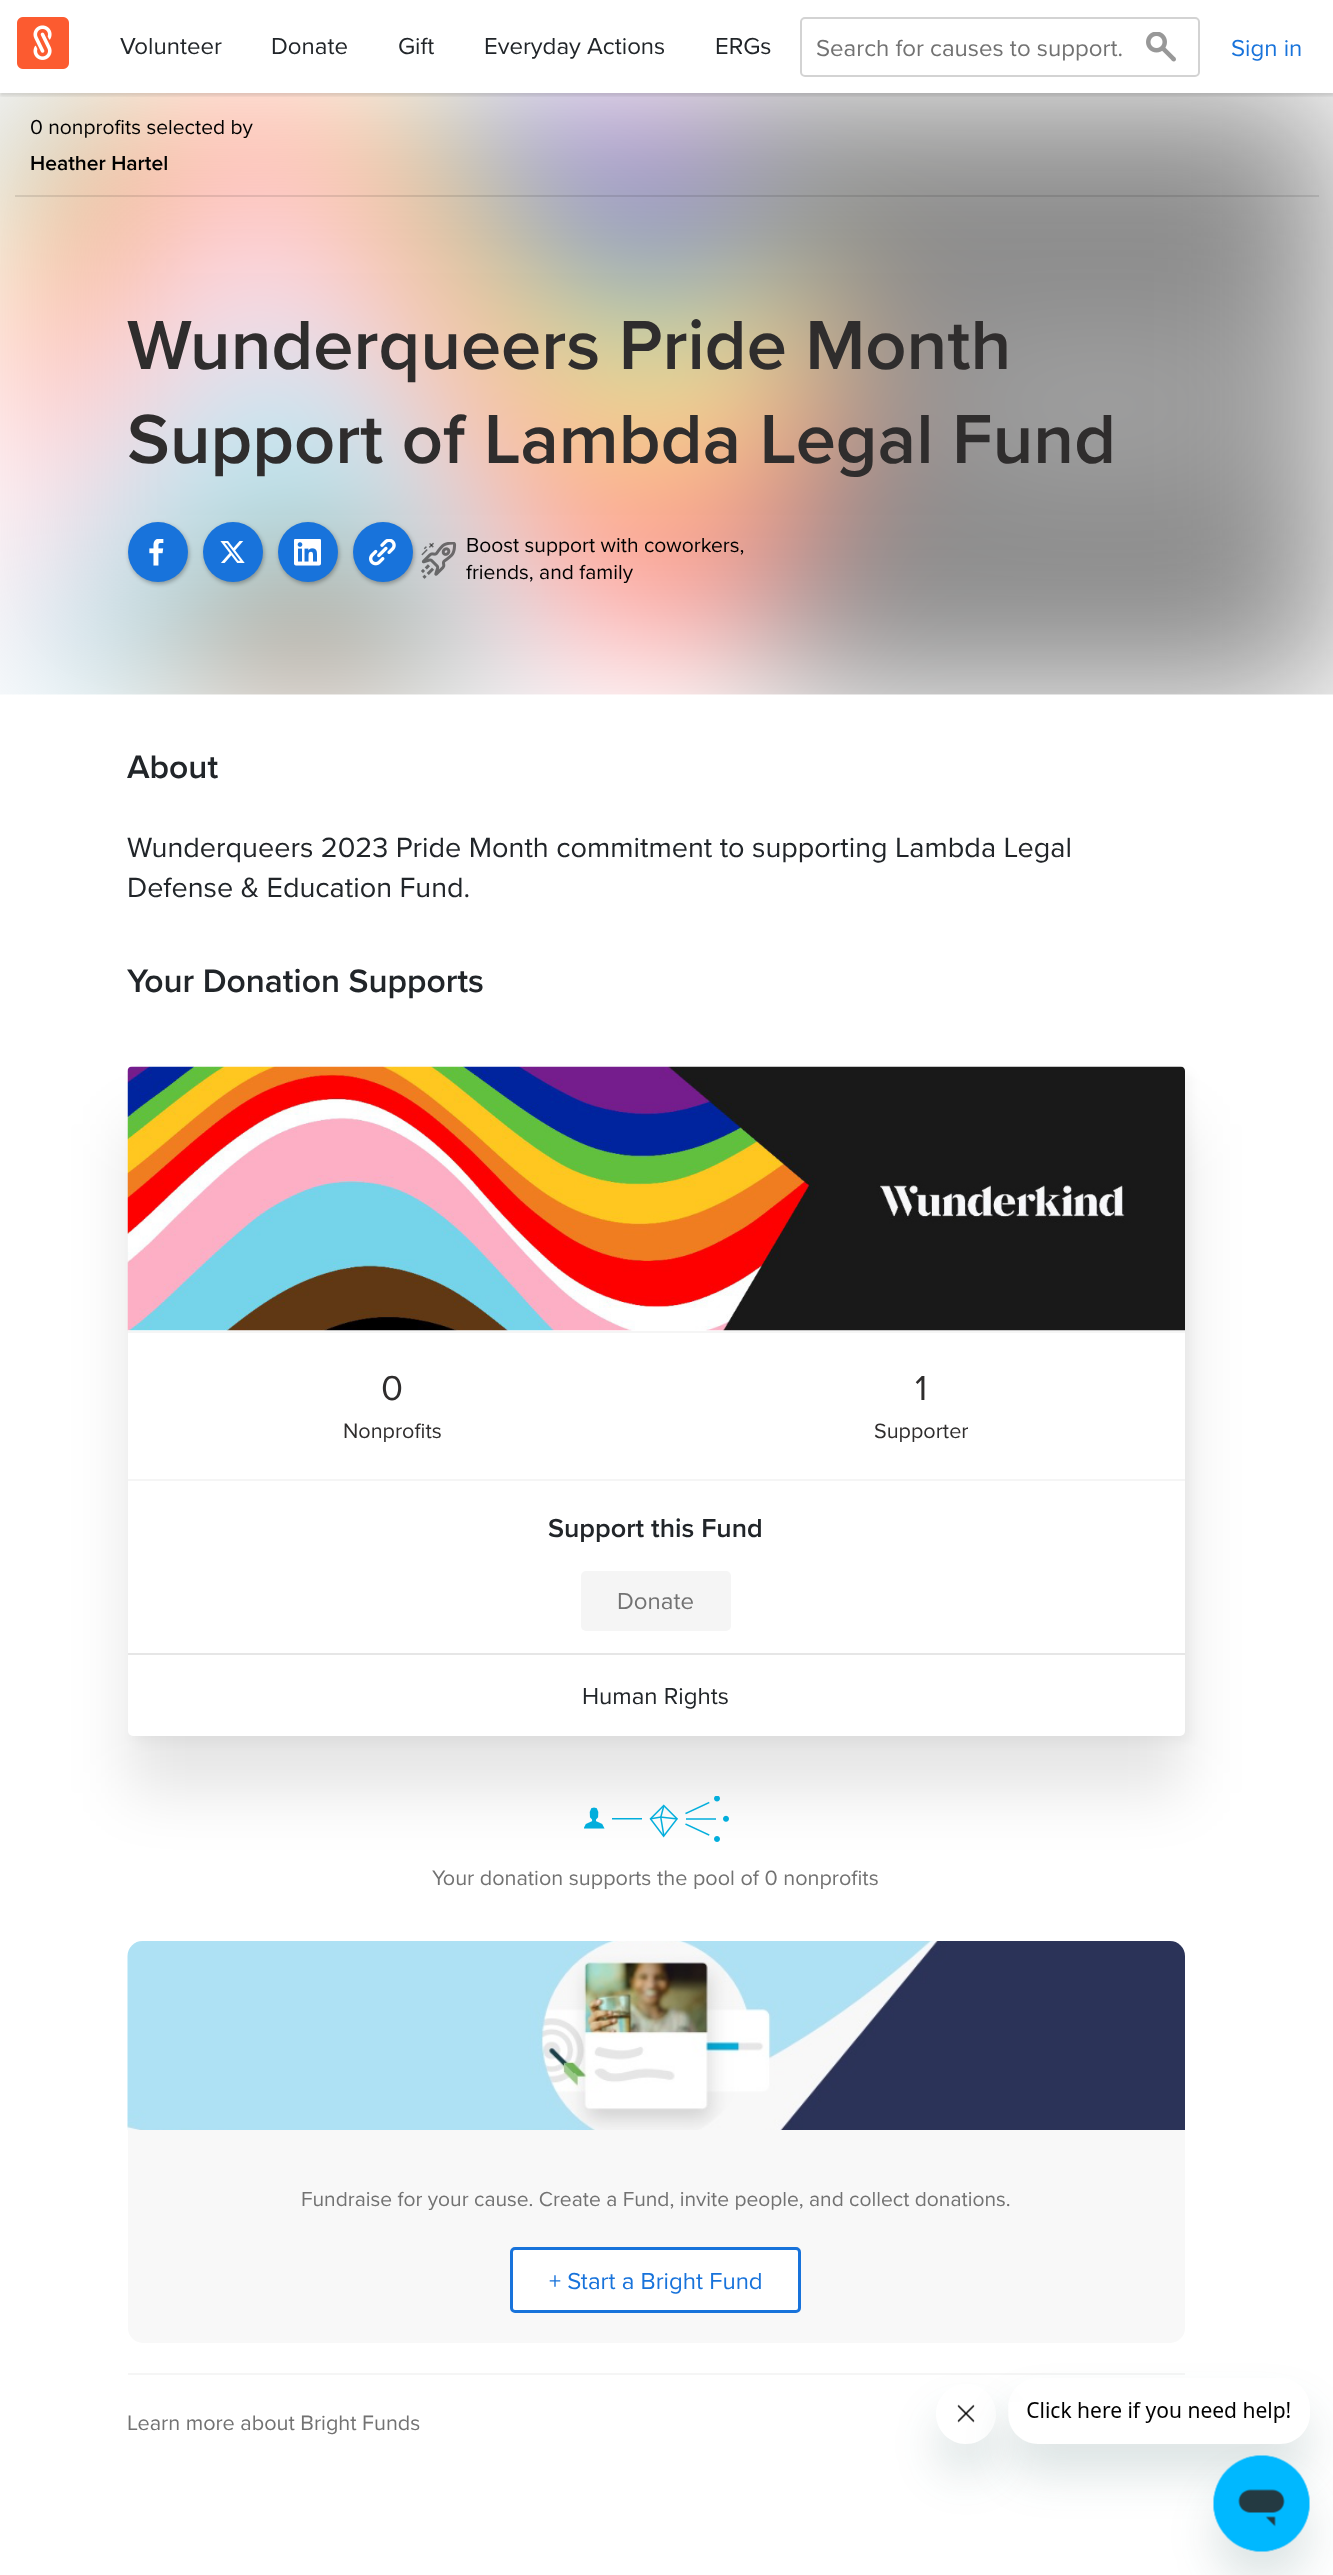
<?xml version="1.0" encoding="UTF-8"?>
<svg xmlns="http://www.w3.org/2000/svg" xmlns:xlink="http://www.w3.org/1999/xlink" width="1333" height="2575">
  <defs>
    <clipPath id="clip1"><rect x="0" y="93" width="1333" height="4" /></clipPath>
    <clipPath id="clip2"><path d="M 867 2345 h 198 v 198 h -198 z m 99 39 c 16.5 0 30 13.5 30 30 c 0 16.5 -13.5 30 -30 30 c -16.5 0 -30 -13.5 -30 -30 c 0 -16.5 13.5 -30 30 -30 z" clip-rule="evenodd" /></clipPath>
    <clipPath id="clip3"><path d="M 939 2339 h 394 v 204 h -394 z m 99 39 h 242 c 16.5 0 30 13.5 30 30 v 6 c 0 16.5 -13.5 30 -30 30 h -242 c -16.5 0 -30 -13.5 -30 -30 v -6 c 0 -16.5 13.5 -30 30 -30 z" clip-rule="evenodd" /></clipPath>
  </defs>
  <rect width="100%" height="100%" fill="#ffffff" />
  <image x="0" y="93" width="1333" height="602" xlink:href="image3.png" />
  <g clip-path="url(#clip1)">
    <rect y="3" width="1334" height="93" fill="#000000" fill-opacity="0.1" filter="blur(1.5px)" />
  </g>
  <image x="17" y="17" width="52" height="52" xlink:href="image1.png" />
  <rect x="801" y="18" width="398" height="58" rx="4" fill="none" stroke="#d3d3d3" stroke-width="2" />
  <image x="1146" y="32" width="30" height="30" xlink:href="image2.png" />
  <rect x="15" y="195" width="1304" height="2" fill="#000000" fill-opacity="0.1" />
  <rect x="129" y="524" width="60" height="60" rx="30" fill="#000000" fill-opacity="0.3" filter="blur(2px)" />
  <circle cx="158" cy="552" r="30" fill="#1873db" />
  <image x="149" y="539" width="15" height="27" xlink:href="image4.png" />
  <rect x="204" y="524" width="60" height="60" rx="30" fill="#000000" fill-opacity="0.3" filter="blur(2px)" />
  <circle cx="233" cy="552" r="30" fill="#1873db" />
  <image x="220" y="541" width="25" height="22" xlink:href="image5.png" />
  <rect x="279" y="524" width="60" height="60" rx="30" fill="#000000" fill-opacity="0.3" filter="blur(2px)" />
  <circle cx="308" cy="552" r="30" fill="#1873db" />
  <image x="294" y="539" width="27" height="27" xlink:href="image6.png" />
  <rect x="354" y="524" width="60" height="60" rx="30" fill="#000000" fill-opacity="0.3" filter="blur(2px)" />
  <circle cx="383" cy="552" r="30" fill="#1873db" />
  <image x="369" y="539" width="27" height="27" xlink:href="image7.png" />
  <image x="421" y="542" width="36" height="37" xlink:href="image8.png" />
  <rect x="128" y="1124" width="1057" height="669" rx="5" fill="#000000" fill-opacity="0.1" filter="blur(30px)" />
  <rect x="134" y="1073" width="1057" height="669" rx="5" fill="#000000" fill-opacity="0.04" filter="blur(6px)" />
  <rect x="128" y="1067" width="1057" height="669" rx="5" fill="#ffffff" />
  <rect x="128" y="1331" width="1057" height="2" fill="#f5f5f5" />
  <image x="127" y="1066" width="1058" height="265" xlink:href="image9.png" />
  <rect x="128" y="1479" width="1057" height="2" fill="#f5f5f5" />
  <rect x="581" y="1571" width="150" height="60" rx="5" fill="#f5f5f5" />
  <rect x="128" y="1653" width="1057" height="2" fill="#e6e6e6" />
  <image x="584" y="1796" width="145" height="46" xlink:href="image10.png" />
  <rect x="128" y="1941" width="1057" height="402" rx="15" fill="#f8f8f8" />
  <image x="127" y="1941" width="1058" height="189" xlink:href="image11.png" />
  <rect x="511.5" y="2248.5" width="288" height="63" rx="3.5" fill="#ffffff" stroke="#1873db" stroke-width="3" />
  <rect x="128" y="2373" width="1057" height="2" fill="#f5f5f5" />
  <g clip-path="url(#clip2)">
    <rect x="936" y="2414" width="60" height="60" rx="30" fill="#17494d" fill-opacity="0.15" filter="blur(22.5px)" />
  </g>
  <image x="955" y="2404" width="22" height="40" xlink:href="image13.png" />
  <g clip-path="url(#clip3)">
    <rect x="1008" y="2408" width="302" height="66" rx="30" fill="#17494d" fill-opacity="0.15" filter="blur(22.5px)" />
  </g>
  <image x="1009" y="2402" width="281" height="41" xlink:href="image12.png" />
  <rect x="1214" y="2486" width="96" height="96" rx="48" fill="#17494d" fill-opacity="0.15" filter="blur(22.5px)" />
  <image x="1213" y="2455" width="97" height="97" xlink:href="image14.png" />
  <text x="120" y="54" style="font-family: Proxima Nova; font-size: 24px; fill: #212529">Volunteer</text>
  <text x="271" y="54" style="font-family: Proxima Nova; font-size: 24px; fill: #212529">Donate</text>
  <text x="398" y="54" style="font-family: Proxima Nova; font-size: 24px; fill: #212529">Gift</text>
  <text x="484" y="54" style="font-family: Proxima Nova; font-size: 24px; fill: #212529">Everyday Actions</text>
  <text x="715" y="54" style="font-family: Proxima Nova; font-size: 24px; fill: #212529">ERGs</text>
  <text x="816" y="56" style="font-family: Proxima Nova; font-size: 24px; fill: #727272">Search for causes to support.</text>
  <text x="1231" y="56" style="font-family: Proxima Nova; font-size: 24px; fill: #1873db">Sign in</text>
  <text x="30" y="134" style="font-family: Proxima Nova; font-size: 21px; fill: #000000">0 nonprofits selected by</text>
  <text x="30" y="170" style="font-family: Proxima Nova; font-size: 21px; font-weight: 600; fill: #000000">Heather Hartel</text>
  <text x="127" y="369" style="font-family: Proxima Nova; font-size: 72px; font-weight: 600; fill: #2f2d2d">Wunderqueers Pride Month</text>
  <text x="127" y="463" style="font-family: Proxima Nova; font-size: 72px; font-weight: 600; fill: #2f2d2d">Support of Lambda Legal Fund</text>
  <text x="466" y="552" style="font-family: Proxima Nova; font-size: 21px; fill: #000000">Boost support with coworkers,</text>
  <text x="466" y="579" style="font-family: Proxima Nova; font-size: 21px; fill: #000000">friends, and family</text>
  <text x="127" y="778" style="font-family: Proxima Nova; font-size: 33.6px; font-weight: 600; fill: #212529">About</text>
  <text x="127" y="857" style="font-family: Proxima Nova; font-size: 28.8px; fill: #212529">Wunderqueers 2023 Pride Month commitment to supporting Lambda Legal</text>
  <text x="127" y="897" style="font-family: Proxima Nova; font-size: 28.8px; fill: #212529">Defense &amp; Education Fund.</text>
  <text x="127" y="992" style="font-family: Proxima Nova; font-size: 33.6px; font-weight: 600; fill: #212529">Your Donation Supports</text>
  <text x="381" y="1400" style="font-family: Proxima Nova; font-size: 36px; fill: #2f2d2d">0</text>
  <text x="343" y="1438" style="font-family: Proxima Nova; font-size: 21.6px; fill: #2f2d2d">Nonprofits</text>
  <text x="915" y="1400" style="font-family: Proxima Nova; font-size: 36px; fill: #2f2d2d">1</text>
  <text x="874" y="1438" style="font-family: Proxima Nova; font-size: 21.6px; fill: #2f2d2d">Supporter</text>
  <text x="548" y="1537" style="font-family: Proxima Nova; font-size: 27px; font-weight: 600; fill: #212529">Support this Fund</text>
  <text x="617" y="1609" style="font-family: Proxima Nova; font-size: 24px; fill: #727272">Donate</text>
  <text x="582" y="1704" style="font-family: Proxima Nova; font-size: 24px; fill: #212529">Human Rights</text>
  <text x="432" y="1885" style="font-family: Proxima Nova; font-size: 21.6px; fill: #727272">Your donation supports the pool of 0 nonprofits</text>
  <text x="301" y="2206" style="font-family: Proxima Nova; font-size: 21px; fill: #727272">Fundraise for your cause. Create a Fund, invite people, and collect donations.</text>
  <text x="549" y="2289" style="font-family: Proxima Nova; font-size: 24px; fill: #1873db">+ Start a Bright Fund</text>
  <text x="127" y="2430" style="font-family: Proxima Nova; font-size: 21.6px; fill: #727272">Learn more about Bright Funds</text>
</svg>
